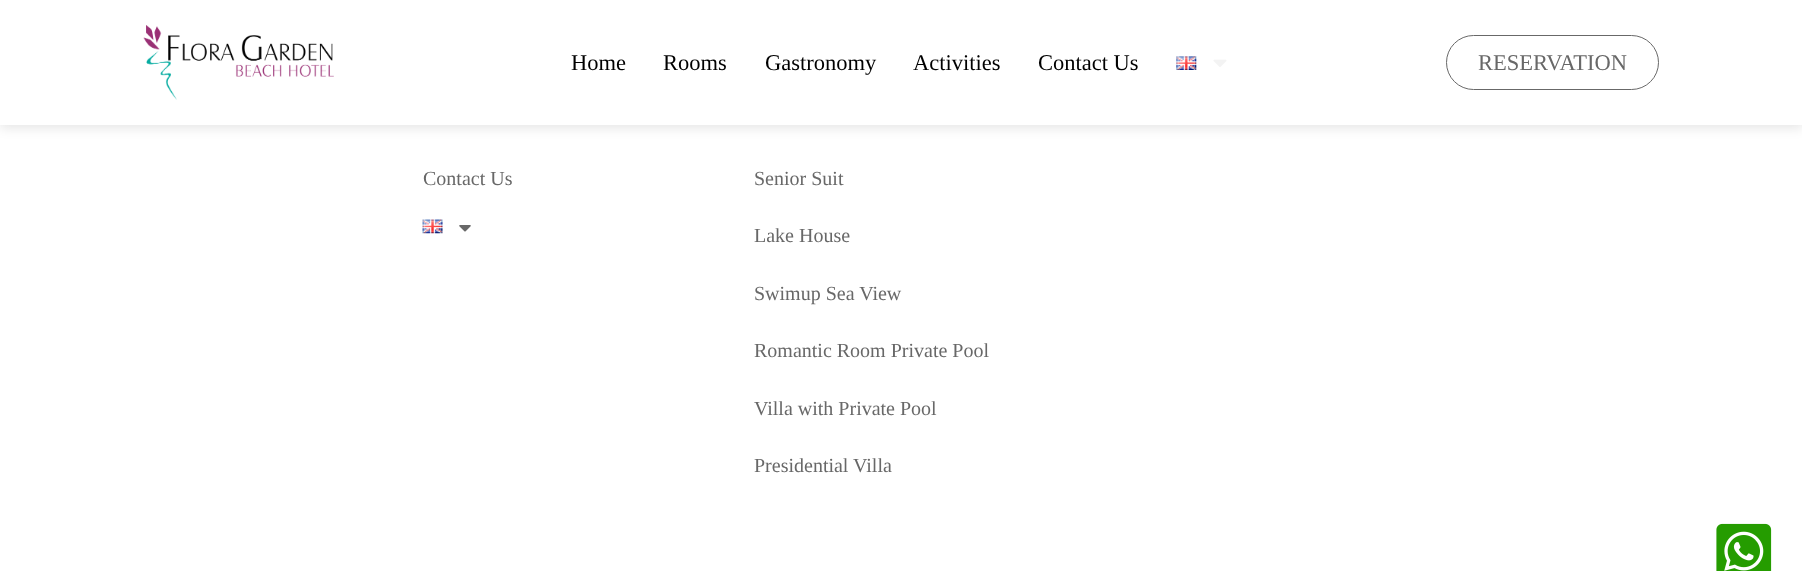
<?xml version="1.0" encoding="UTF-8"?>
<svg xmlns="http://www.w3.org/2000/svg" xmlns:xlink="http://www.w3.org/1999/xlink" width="1802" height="571">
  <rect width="100%" height="100%" fill="#ffffff" />
  <rect y="3" width="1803" height="125" fill="#000000" fill-opacity="0.1" filter="blur(6px)" />
  <rect width="1802" height="125" fill="#ffffff" />
  <image x="143" y="25" width="191" height="75" xlink:href="image1.png" />
  <image x="1176" y="56" width="21" height="14" xlink:href="image2.png" />
  <image x="1213" y="59" width="14" height="8" xlink:href="image3.png" />
  <rect x="1446.5" y="35.5" width="212" height="54" rx="27" fill="none" stroke="#686868" />
  <image x="422" y="219" width="21" height="15" xlink:href="image4.png" />
  <image x="459" y="225" width="12" height="7" xlink:href="image5.png" />
  <image x="1716" y="523" width="56" height="48" xlink:href="image6.png" />
  <text x="571" y="70" style="font-family: Liberation Serif; font-size: 22.5px; fill: #000000">Home</text>
  <text x="663" y="70" style="font-family: Liberation Serif; font-size: 22.5px; fill: #000000">Rooms</text>
  <text x="765" y="70" style="font-family: Liberation Serif; font-size: 22.5px; fill: #000000">Gastronomy</text>
  <text x="913" y="70" style="font-family: Liberation Serif; font-size: 22.5px; fill: #000000">Activities</text>
  <text x="1038" y="70" style="font-family: Liberation Serif; font-size: 22.5px; fill: #000000">Contact Us</text>
  <text x="1478" y="70" style="font-family: Liberation Serif; font-size: 22.5px; fill: #686868">RESERVATION</text>
  <text x="423" y="185" style="font-family: Liberation Serif; font-size: 20px; fill: #686868">Contact Us</text>
  <text x="754" y="185" style="font-family: Liberation Serif; font-size: 20px; fill: #686868">Senior Suit</text>
  <text x="754" y="242" style="font-family: Liberation Serif; font-size: 20px; fill: #686868">Lake House</text>
  <text x="754" y="300" style="font-family: Liberation Serif; font-size: 20px; fill: #686868">Swimup Sea View</text>
  <text x="754" y="357" style="font-family: Liberation Serif; font-size: 20px; fill: #686868">Romantic Room Private Pool</text>
  <text x="754" y="415" style="font-family: Liberation Serif; font-size: 20px; fill: #686868">Villa with Private Pool</text>
  <text x="754" y="472" style="font-family: Liberation Serif; font-size: 20px; fill: #686868">Presidential Villa</text>
</svg>
